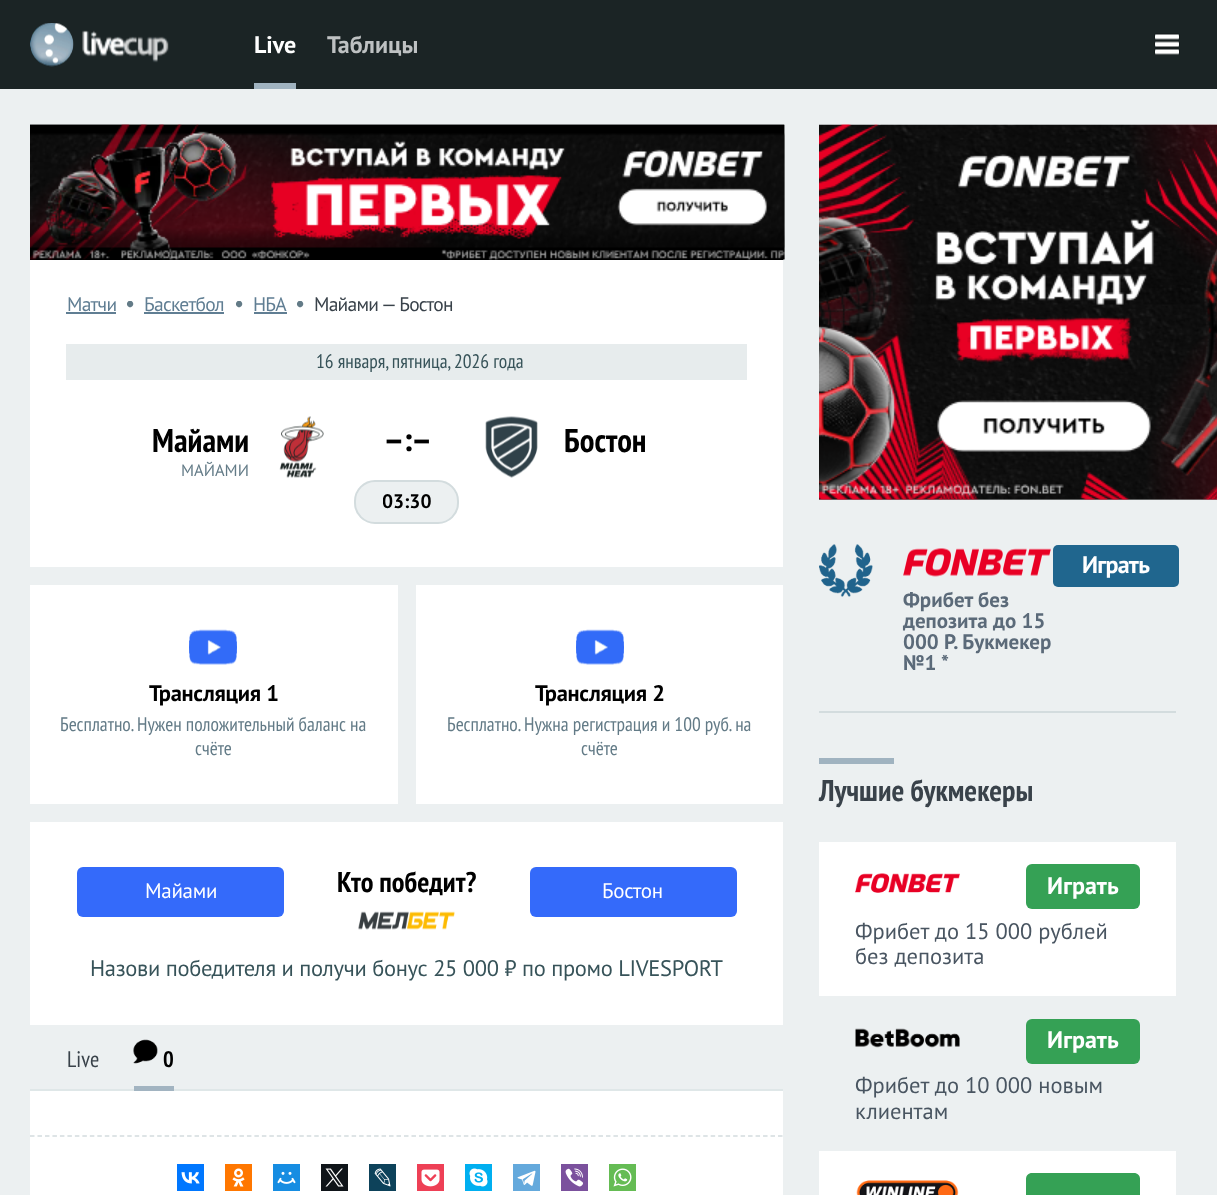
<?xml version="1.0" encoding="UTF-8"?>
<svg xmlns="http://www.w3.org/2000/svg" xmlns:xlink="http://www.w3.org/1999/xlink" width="1217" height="1195">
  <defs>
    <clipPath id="clip1"><rect x="383" y="480" width="49" height="41" /></clipPath>
  </defs>
  <rect width="100%" height="100%" fill="#ecf0f1" />
  <rect width="1217" height="89" fill="#1b2425" />
  <image x="30" y="23" width="44" height="44" xlink:href="image1.png" />
  <image x="82" y="30" width="87" height="33" xlink:href="image2.png" />
  <rect x="254" y="83" width="42" height="6" fill="#a0b3c0" />
  <image x="1154" y="33" width="26" height="22" xlink:href="image3.png" />
  <rect x="30" y="260" width="753" height="935" fill="#ffffff" />
  <rect x="30" y="259" width="753" height="1" fill="#000000" />
  <image x="30" y="124" width="755" height="136" xlink:href="image4.png" />
  <rect x="66" y="312" width="50" height="2" fill="#607e93" />
  <rect x="144" y="312" width="80" height="2" fill="#607e93" />
  <rect x="254" y="312" width="33" height="2" fill="#607e93" />
  <rect x="66" y="344" width="681" height="36" fill="#e7eced" />
  <image x="279" y="416" width="45" height="62" xlink:href="image5.png" />
  <rect x="355" y="481" width="103" height="42" rx="20" fill="#ecf0f1" stroke="#d3dcde" stroke-width="2" />
  <image x="485" y="416" width="53" height="62" xlink:href="image6.png" />
  <rect x="30" y="567" width="753" height="18" fill="#ecf0f1" />
  <rect x="398" y="585" width="18" height="219" fill="#ecf0f1" />
  <image x="189" y="629" width="48" height="36" xlink:href="image7.png" />
  <image x="576" y="629" width="48" height="36" xlink:href="image8.png" />
  <rect x="30" y="804" width="753" height="18" fill="#ecf0f1" />
  <rect x="77" y="867" width="207" height="50" rx="6" fill="#346afa" />
  <image x="358" y="911" width="97" height="19" xlink:href="image9.png" />
  <rect x="530" y="867" width="207" height="50" rx="6" fill="#346afa" />
  <rect x="30" y="1025" width="753" height="64" fill="#ecf0f1" />
  <rect x="30" y="1089" width="753" height="2" fill="#dfe7e8" />
  <image x="133" y="1039" width="25" height="25" xlink:href="image10.png" />
  <rect x="134" y="1086" width="40" height="5" fill="#a2b4c1" />
  <path d="M 30 1136 h 753" fill="none" stroke="#d3dcde" stroke-width="1.5" stroke-dasharray="4.5 2.98" />
  <rect x="177" y="1164" width="27" height="27" fill="#0077ff" />
  <image x="181" y="1172" width="19" height="12" xlink:href="image11.png" />
  <rect x="225" y="1164" width="27" height="27" fill="#ff7700" />
  <image x="232" y="1168" width="13" height="19" xlink:href="image12.png" />
  <rect x="273" y="1164" width="27" height="27" fill="#168de2" />
  <image x="277" y="1171" width="19" height="13" xlink:href="image13.png" />
  <rect x="321" y="1164" width="27" height="27" fill="#0f1419" />
  <image x="325" y="1168" width="19" height="19" xlink:href="image14.png" />
  <rect x="369" y="1164" width="27" height="27" fill="#0d425a" />
  <image x="374" y="1168" width="17" height="19" xlink:href="image15.png" />
  <rect x="417" y="1164" width="27" height="27" fill="#ee4056" />
  <image x="421" y="1169" width="19" height="18" xlink:href="image16.png" />
  <rect x="465" y="1164" width="27" height="27" fill="#00aff0" />
  <image x="469" y="1168" width="19" height="19" xlink:href="image17.png" />
  <rect x="513" y="1164" width="27" height="27" fill="#64a9dc" />
  <image x="517" y="1170" width="19" height="16" xlink:href="image18.png" />
  <rect x="561" y="1164" width="27" height="27" fill="#7b519d" />
  <image x="565" y="1168" width="18" height="19" xlink:href="image19.png" />
  <rect x="609" y="1164" width="27" height="27" fill="#65bc54" />
  <image x="613" y="1168" width="19" height="19" xlink:href="image20.png" />
  <image x="819" y="124" width="398" height="376" xlink:href="image21.png" />
  <rect x="819" y="711" width="357" height="2" fill="#d3dcde" />
  <image x="819" y="544" width="54" height="53" xlink:href="image22.png" />
  <rect x="1053" y="545" width="126" height="42" rx="5" fill="#20668e" />
  <image x="903" y="548" width="148" height="29" xlink:href="image23.png" />
  <rect x="819" y="758" width="75" height="6" fill="#a0b3c0" />
  <rect x="819" y="842" width="357" height="154" fill="#ffffff" />
  <image x="855" y="873" width="105" height="20" xlink:href="image24.png" />
  <rect x="1026" y="864" width="114" height="45" rx="6" fill="#35a155" />
  <image x="855" y="1028" width="105" height="20" xlink:href="image25.png" />
  <rect x="1026" y="1019" width="114" height="45" rx="6" fill="#35a155" />
  <rect x="819" y="1151" width="357" height="44" fill="#ffffff" />
  <image x="856" y="1180" width="103" height="15" xlink:href="image26.png" />
  <path d="M 1032 1173 h 102 c 3.5 0 6 2.5 6 6 v 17 h -114 v -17 c 0 -3.5 2.5 -6 6 -6 z" fill="#35a155" />
  <text x="254" y="53" style="font-family: PT Sans; font-size: 24px; font-weight: bold; fill: #ffffff">Live</text>
  <text x="327" y="53" style="font-family: PT Sans; font-size: 24px; font-weight: bold; fill: #bec1c2">Таблицы</text>
  <text x="67" y="311" style="font-family: PT Sans; font-size: 19.5px; letter-spacing: -0.75px; fill: #607e93">Матчи</text>
  <text x="125" y="311" style="font-family: PT Sans; font-size: 22.5px; fill: #637b87">•</text>
  <text x="144" y="311" style="font-family: PT Sans; font-size: 19.5px; letter-spacing: -0.75px; fill: #607e93">Баскетбол</text>
  <text x="234" y="311" style="font-family: PT Sans; font-size: 22.5px; fill: #637b87">•</text>
  <text x="253" y="311" style="font-family: PT Sans; font-size: 19.5px; letter-spacing: -0.75px; fill: #607e93">НБА</text>
  <text x="295" y="311" style="font-family: PT Sans; font-size: 22.5px; fill: #637b87">•</text>
  <text x="314" y="311" style="font-family: PT Sans; font-size: 19.5px; letter-spacing: -0.75px; fill: #39424a">Майами — Бостон</text>
  <text x="316" y="368" style="font-family: PT Sans Narrow; font-size: 19.5px; fill: #375359">16 января, пятница, 2026 года</text>
  <text x="152" y="452" style="font-family: PT Sans Narrow; font-size: 33px; font-weight: bold; fill: #000000">Майами</text>
  <text x="181" y="476" style="font-family: PT Sans; font-size: 16.5px; fill: #637b87">МАЙАМИ</text>
  <text x="383" y="451" style="font-family: PT Sans; font-size: 33px; font-weight: bold; letter-spacing: -1.5px; fill: #000000">–:–</text>
  <g clip-path="url(#clip1)">
    <text x="382" y="508" style="font-family: PT Sans; font-size: 19.5px; font-weight: bold; fill: #000000">03:30</text>
  </g>
  <text x="564" y="452" style="font-family: PT Sans Narrow; font-size: 33px; font-weight: bold; fill: #000000">Бостон</text>
  <text x="149" y="701" style="font-family: PT Sans; font-size: 22.5px; font-weight: bold; letter-spacing: -0.3px; fill: #000000">Трансляция 1</text>
  <text x="60" y="731" style="font-family: PT Sans Narrow; font-size: 19.5px; fill: #637b87">Бесплатно. Нужен положительный баланс на</text>
  <text x="195" y="755" style="font-family: PT Sans Narrow; font-size: 19.5px; fill: #637b87">счёте</text>
  <text x="535" y="701" style="font-family: PT Sans; font-size: 22.5px; font-weight: bold; letter-spacing: -0.3px; fill: #000000">Трансляция 2</text>
  <text x="447" y="731" style="font-family: PT Sans Narrow; font-size: 19.5px; fill: #637b87">Бесплатно. Нужна регистрация и 100 руб. на</text>
  <text x="581" y="755" style="font-family: PT Sans Narrow; font-size: 19.5px; fill: #637b87">счёте</text>
  <text x="145" y="898" style="font-family: PT Sans; font-size: 21px; letter-spacing: -0.3px; fill: #ffffff">Майами</text>
  <text x="337" y="892" style="font-family: PT Sans Narrow; font-size: 28.5px; font-weight: bold; fill: #000000">Кто победит?</text>
  <text x="602" y="898" style="font-family: PT Sans; font-size: 21px; letter-spacing: -0.3px; fill: #ffffff">Бостон</text>
  <text x="90" y="976" style="font-family: PT Sans; font-size: 22.5px; letter-spacing: -0.3px; fill: #375359">Назови победителя и получи бонус 25 000 ₽ по промо LIVESPORT</text>
  <text x="67" y="1067" style="font-family: PT Sans Narrow; font-size: 22.5px; fill: #39424a">Live</text>
  <text x="163" y="1067" style="font-family: PT Sans Narrow; font-size: 22.5px; font-weight: bold; fill: #000000">0</text>
  <text x="1082" y="573" style="font-family: PT Sans; font-size: 24px; font-weight: bold; letter-spacing: -0.75px; fill: #ffffff">Играть</text>
  <text x="903" y="607" style="font-family: PT Sans; font-size: 21px; font-weight: bold; fill: #5b6a79">Фрибет без</text>
  <text x="903" y="628" style="font-family: PT Sans; font-size: 21px; font-weight: bold; fill: #5b6a79">депозита до 15</text>
  <text x="903" y="649" style="font-family: PT Sans; font-size: 21px; font-weight: bold; fill: #5b6a79">000 Р. Букмекер</text>
  <text x="903" y="670" style="font-family: PT Sans; font-size: 21px; font-weight: bold; fill: #5b6a79">№1 *</text>
  <text x="819" y="801" style="font-family: PT Sans Narrow; font-size: 30px; font-weight: bold; fill: #39424a">Лучшие букмекеры</text>
  <text x="1047" y="894" style="font-family: PT Sans; font-size: 24px; font-weight: bold; fill: #ffffff">Играть</text>
  <text x="855" y="939" style="font-family: PT Sans; font-size: 22.5px; fill: #495561">Фрибет до 15 000 рублей</text>
  <text x="855" y="964" style="font-family: PT Sans; font-size: 22.5px; fill: #495561">без депозита</text>
  <text x="1047" y="1048" style="font-family: PT Sans; font-size: 24px; font-weight: bold; fill: #ffffff">Играть</text>
  <text x="855" y="1093" style="font-family: PT Sans; font-size: 22.5px; fill: #495561">Фрибет до 10 000 новым</text>
  <text x="855" y="1119" style="font-family: PT Sans; font-size: 22.5px; fill: #495561">клиентам</text>
</svg>
